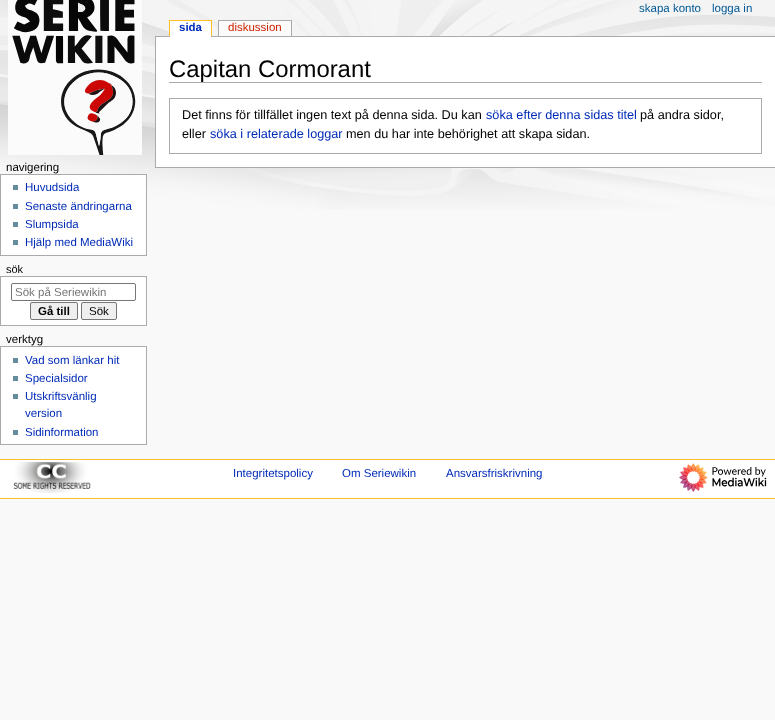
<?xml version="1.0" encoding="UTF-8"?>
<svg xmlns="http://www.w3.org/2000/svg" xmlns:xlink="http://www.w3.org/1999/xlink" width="775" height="720">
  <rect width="100%" height="100%" fill="#f9f9f9" />
  <image x="0" y="0" width="775" height="210" xlink:href="image1.png" />
  <image x="8" y="0" width="134" height="155" xlink:href="image2.png" />
  <rect x="169" y="20" width="43" height="1" fill="#fabd23" />
  <rect x="211" y="20" width="1" height="16" fill="#fabd23" />
  <rect x="169" y="20" width="1" height="16" fill="#fabd23" />
  <rect x="155" y="36" width="620" height="1" fill="#aaaaaa" />
  <rect x="170" y="21" width="41" height="16" fill="#ffffff" />
  <rect x="218" y="20" width="74" height="1" fill="#aaaaaa" />
  <rect x="291" y="20" width="1" height="16" fill="#aaaaaa" />
  <rect x="218" y="20" width="1" height="16" fill="#aaaaaa" />
  <rect x="219" y="21" width="72" height="15" fill="#fbfbfb" />
  <rect x="0.5" y="174.5" width="146" height="81" fill="#ffffff" stroke="#aaaaaa" />
  <rect x="13" y="185" width="5" height="5" fill="#638c9c" />
  <rect x="13" y="204" width="5" height="5" fill="#638c9c" />
  <rect x="13" y="222" width="5" height="5" fill="#638c9c" />
  <rect x="13" y="240" width="5" height="5" fill="#638c9c" />
  <rect x="0.5" y="276.5" width="146" height="49" fill="#ffffff" stroke="#aaaaaa" />
  <rect x="11.5" y="283.5" width="124" height="17" rx="1.5" fill="none" stroke="#767676" />
  <rect x="30.5" y="302.5" width="47" height="17" rx="1.5" fill="#efefef" stroke="#767676" />
  <rect x="81.5" y="302.5" width="35" height="17" rx="1.5" fill="#efefef" stroke="#767676" />
  <rect x="0.5" y="346.5" width="146" height="98" fill="#ffffff" stroke="#aaaaaa" />
  <rect x="13" y="358" width="5" height="5" fill="#638c9c" />
  <rect x="13" y="376" width="5" height="5" fill="#638c9c" />
  <rect x="13" y="394" width="5" height="5" fill="#638c9c" />
  <rect x="13" y="430" width="5" height="5" fill="#638c9c" />
  <rect x="156" y="37" width="619" height="130" fill="#ffffff" />
  <rect x="155" y="167" width="620" height="1" fill="#aaaaaa" />
  <rect x="155" y="36" width="1" height="132" fill="#aaaaaa" />
  <rect x="169" y="82" width="593" height="1" fill="#aaaaaa" />
  <rect x="169.5" y="98.5" width="592" height="55" fill="none" stroke="#aaaaaa" />
  <rect y="460" width="775" height="38" fill="#ffffff" />
  <rect y="459" width="775" height="1" fill="#fabd23" />
  <rect y="498" width="775" height="1" fill="#fabd23" />
  <image x="13" y="462" width="78" height="31" xlink:href="image3.png" />
  <image x="679" y="463" width="88" height="29" xlink:href="image4.png" />
  <text x="639" y="12" style="font-family: Liberation Sans; font-size: 11.5px; fill: #005896">skapa konto</text>
  <text x="712" y="12" style="font-family: Liberation Sans; font-size: 11.5px; fill: #005896">logga in</text>
  <text x="179" y="31" style="font-family: Liberation Sans; font-size: 11.5px; font-weight: bold; fill: #002bb8">sida</text>
  <text x="228" y="31" style="font-family: Liberation Sans; font-size: 11.5px; fill: #cc2200">diskussion</text>
  <text x="6" y="171" style="font-family: Liberation Sans; font-size: 11.5px; fill: #000000">navigering</text>
  <text x="25" y="191" style="font-family: Liberation Sans; font-size: 11.5px; fill: #002bb8">Huvudsida</text>
  <text x="25" y="210" style="font-family: Liberation Sans; font-size: 11.5px; fill: #002bb8">Senaste ändringarna</text>
  <text x="25" y="228" style="font-family: Liberation Sans; font-size: 11.5px; fill: #002bb8">Slumpsida</text>
  <text x="25" y="246" style="font-family: Liberation Sans; font-size: 11.5px; fill: #002bb8">Hjälp med MediaWiki</text>
  <text x="6" y="273" style="font-family: Liberation Sans; font-size: 11px; fill: #000000">sök</text>
  <text x="15" y="296" style="font-family: Liberation Sans; font-size: 11.5px; fill: #757575">Sök på Seriewikin</text>
  <text x="38" y="315" style="font-family: Liberation Sans; font-size: 11.5px; font-weight: bold; fill: #000000">Gå till</text>
  <text x="89" y="315" style="font-family: Liberation Sans; font-size: 11.5px; fill: #000000">Sök</text>
  <text x="6" y="343" style="font-family: Liberation Sans; font-size: 11.5px; fill: #000000">verktyg</text>
  <text x="25" y="364" style="font-family: Liberation Sans; font-size: 11.5px; fill: #002bb8">Vad som länkar hit</text>
  <text x="25" y="382" style="font-family: Liberation Sans; font-size: 11.5px; fill: #002bb8">Specialsidor</text>
  <text x="25" y="400" style="font-family: Liberation Sans; font-size: 11.5px; fill: #002bb8">Utskriftsvänlig</text>
  <text x="25" y="417" style="font-family: Liberation Sans; font-size: 11.5px; fill: #002bb8">version</text>
  <text x="25" y="436" style="font-family: Liberation Sans; font-size: 11.5px; fill: #002bb8">Sidinformation</text>
  <text x="169" y="77" style="font-family: Liberation Sans; font-size: 23.9px; fill: #000000">Capitan Cormorant</text>
  <text x="182" y="119" style="font-family: Liberation Sans; font-size: 12.7px; fill: #000000">Det finns för tillfället ingen text på denna sida. Du kan</text>
  <text x="486" y="119" style="font-family: Liberation Sans; font-size: 12.7px; fill: #002bb8">söka efter denna sidas titel</text>
  <text x="640" y="119" style="font-family: Liberation Sans; font-size: 12.7px; fill: #000000">på andra sidor,</text>
  <text x="182" y="138" style="font-family: Liberation Sans; font-size: 12.7px; fill: #000000">eller</text>
  <text x="210" y="138" style="font-family: Liberation Sans; font-size: 12.7px; fill: #002bb8">söka i relaterade loggar</text>
  <text x="346" y="138" style="font-family: Liberation Sans; font-size: 12.7px; fill: #000000">men du har inte behörighet att skapa sidan.</text>
  <text x="233" y="477" style="font-family: Liberation Sans; font-size: 11.5px; fill: #002bb8">Integritetspolicy</text>
  <text x="342" y="477" style="font-family: Liberation Sans; font-size: 11.5px; fill: #002bb8">Om Seriewikin</text>
  <text x="446" y="477" style="font-family: Liberation Sans; font-size: 11.5px; fill: #002bb8">Ansvarsfriskrivning</text>
</svg>
